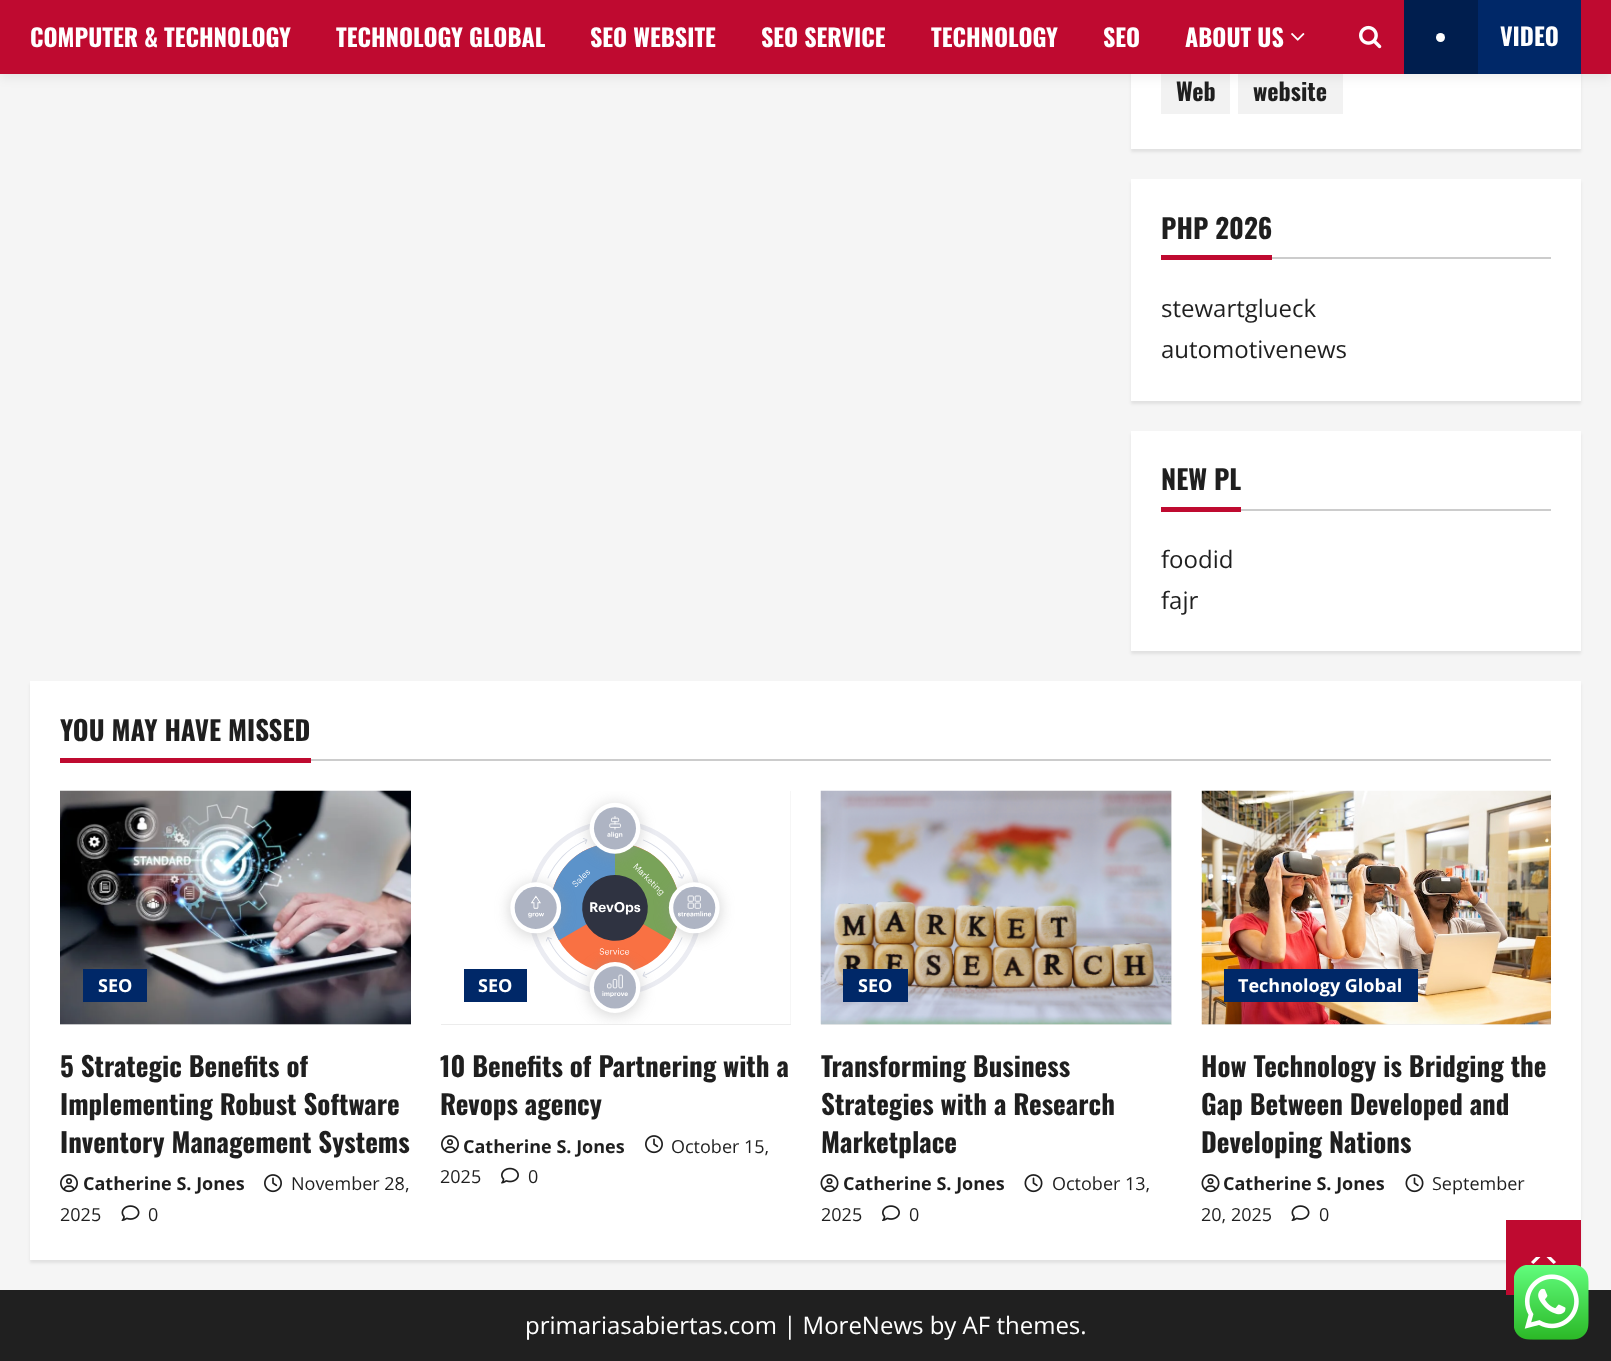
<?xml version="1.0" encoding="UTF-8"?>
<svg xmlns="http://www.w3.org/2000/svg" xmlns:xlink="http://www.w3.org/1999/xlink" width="1611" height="1361">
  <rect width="100%" height="100%" fill="#f5f5f5" />
  <rect x="1131" y="-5" width="450" height="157" fill="#000000" fill-opacity="0.08" filter="blur(1.5px)" />
  <rect x="1131" y="74" width="450" height="75" fill="#ffffff" />
  <rect x="1161" y="74" width="69" height="40" fill="#f2f2f2" />
  <rect x="1238" y="74" width="105" height="40" fill="#f2f2f2" />
  <rect y="3" width="1611" height="74" fill="#000000" fill-opacity="0.08" filter="blur(6px)" />
  <rect width="1611" height="74" fill="#bf0a30" />
  <image x="1291" y="33" width="14" height="8" xlink:href="image1.png" />
  <image x="1359" y="25" width="23" height="24" xlink:href="image2.png" />
  <rect x="1478" width="103" height="74" fill="#002868" />
  <rect x="1404" width="74" height="74" fill="#001e4e" />
  <circle cx="1440.5" cy="37.5" r="4.5" fill="#ffffff" />
  <rect x="1131" y="182" width="450" height="222" fill="#000000" fill-opacity="0.08" filter="blur(1.5px)" />
  <rect x="1131" y="179" width="450" height="222" fill="#ffffff" />
  <rect x="1272" y="257" width="279" height="2" fill="#cccccc" />
  <rect x="1161" y="255" width="111" height="5" fill="#bf0a30" />
  <rect x="1131" y="434" width="450" height="220" fill="#000000" fill-opacity="0.08" filter="blur(1.5px)" />
  <rect x="1131" y="431" width="450" height="220" fill="#ffffff" />
  <rect x="1241" y="509" width="310" height="2" fill="#cccccc" />
  <rect x="1161" y="507" width="80" height="5" fill="#bf0a30" />
  <rect x="30" y="684" width="1551" height="579" fill="#000000" fill-opacity="0.08" filter="blur(1.5px)" />
  <rect x="30" y="681" width="1551" height="579" fill="#ffffff" />
  <rect x="311" y="759" width="1240" height="2" fill="#cccccc" />
  <rect x="60" y="758" width="251" height="5" fill="#bf0a30" />
  <rect x="60" y="1024" width="351" height="1" fill="#ececec" />
  <image x="60" y="790" width="351" height="235" xlink:href="image3.png" />
  <rect x="83" y="969" width="64" height="33" fill="#002868" />
  <image x="60" y="1174" width="18" height="19" xlink:href="image4.png" />
  <image x="264" y="1174" width="18" height="19" xlink:href="image5.png" />
  <image x="121" y="1205" width="19" height="16" xlink:href="image6.png" />
  <rect x="441" y="791" width="350" height="234" fill="#ececec" />
  <image x="441" y="791" width="350" height="233" xlink:href="image7.png" />
  <rect x="464" y="969" width="63" height="33" fill="#002868" />
  <image x="441" y="1135" width="18" height="19" xlink:href="image4.png" />
  <image x="645" y="1135" width="18" height="19" xlink:href="image5.png" />
  <image x="501" y="1167" width="18" height="17" xlink:href="image8.png" />
  <rect x="821" y="791" width="351" height="234" fill="#ececec" />
  <image x="820" y="790" width="352" height="235" xlink:href="image9.png" />
  <rect x="843" y="969" width="65" height="33" fill="#002868" />
  <image x="820" y="1174" width="19" height="19" xlink:href="image10.png" />
  <image x="1024" y="1174" width="19" height="19" xlink:href="image11.png" />
  <image x="882" y="1205" width="18" height="16" xlink:href="image12.png" />
  <rect x="1202" y="1024" width="349" height="1" fill="#ececec" />
  <image x="1201" y="790" width="350" height="235" xlink:href="image13.png" />
  <rect x="1224" y="969" width="194" height="33" fill="#002868" />
  <image x="1201" y="1174" width="19" height="19" xlink:href="image10.png" />
  <image x="1405" y="1174" width="19" height="19" xlink:href="image11.png" />
  <image x="1291" y="1205" width="19" height="16" xlink:href="image6.png" />
  <rect y="1290" width="1611" height="71" fill="#202020" />
  <rect x="1506" y="1220" width="75" height="75" fill="#bf0a30" />
  <path d="M 1536 1264.5 h 15 c 2 0 4 -1 5 -2.5 l -5 -5 h -15 l -5 5 c 1 1.5 3 2.5 5 2.5 z" fill="#ffffff" />
  <path d="M 1558.5 1269 h -30 l 15 -15 z" fill="#bf0a30" />
  <image x="1514" y="1265" width="75" height="75" xlink:href="image14.png" />
  <text x="30" y="47" style="font-family: Oswald; font-size: 24px; font-weight: bold; fill: #ffffff">COMPUTER &amp; TECHNOLOGY</text>
  <text x="336" y="47" style="font-family: Oswald; font-size: 24px; font-weight: bold; fill: #ffffff">TECHNOLOGY GLOBAL</text>
  <text x="590" y="47" style="font-family: Oswald; font-size: 24px; font-weight: bold; fill: #ffffff">SEO WEBSITE</text>
  <text x="761" y="47" style="font-family: Oswald; font-size: 24px; font-weight: bold; fill: #ffffff">SEO SERVICE</text>
  <text x="931" y="47" style="font-family: Oswald; font-size: 24px; font-weight: bold; fill: #ffffff">TECHNOLOGY</text>
  <text x="1103" y="47" style="font-family: Oswald; font-size: 24px; font-weight: bold; fill: #ffffff">SEO</text>
  <text x="1185" y="47" style="font-family: Oswald; font-size: 24px; font-weight: bold; fill: #ffffff">ABOUT US</text>
  <text x="1500" y="46" style="font-family: Oswald; font-size: 24px; font-weight: bold; fill: #ffffff">VIDEO</text>
  <text x="1176" y="101" style="font-family: Oswald; font-size: 24px; font-weight: bold; fill: #1f1f1f">Web</text>
  <text x="1253" y="101" style="font-family: Oswald; font-size: 24px; font-weight: bold; fill: #1f1f1f">website</text>
  <text x="1161" y="239" style="font-family: Oswald; font-size: 27px; font-weight: bold; fill: #1f1f1f">PHP 2026</text>
  <text x="1161" y="317" style="font-family: Open Sans; font-size: 24px; fill: #1f1f1f">stewartglueck</text>
  <text x="1161" y="358" style="font-family: Open Sans; font-size: 24px; fill: #1f1f1f">automotivenews</text>
  <text x="1161" y="490" style="font-family: Oswald; font-size: 27px; font-weight: bold; fill: #1f1f1f">NEW PL</text>
  <text x="1161" y="568" style="font-family: Open Sans; font-size: 24px; fill: #1f1f1f">foodid</text>
  <text x="1161" y="609" style="font-family: Open Sans; font-size: 24px; fill: #1f1f1f">fajr</text>
  <text x="60" y="741" style="font-family: Oswald; font-size: 27px; font-weight: bold; fill: #1f1f1f">YOU MAY HAVE MISSED</text>
  <text x="98" y="992" style="font-family: Open Sans; font-size: 18px; font-weight: bold; fill: #ffffff">SEO</text>
  <text x="60" y="1077" style="font-family: Oswald; font-size: 27px; font-weight: bold; fill: #1f1f1f">5 Strategic Benefits of</text>
  <text x="60" y="1115" style="font-family: Oswald; font-size: 27px; font-weight: bold; fill: #1f1f1f">Implementing Robust Software</text>
  <text x="60" y="1153" style="font-family: Oswald; font-size: 27px; font-weight: bold; fill: #1f1f1f">Inventory Management Systems</text>
  <text x="83" y="1190" style="font-family: Open Sans; font-size: 18px; font-weight: bold; fill: #1f1f1f">Catherine S. Jones</text>
  <text x="291" y="1190" style="font-family: Open Sans; font-size: 18px; fill: #1f1f1f">November 28,</text>
  <text x="60" y="1221" style="font-family: Open Sans; font-size: 18px; fill: #1f1f1f">2025</text>
  <text x="148" y="1221" style="font-family: Open Sans; font-size: 18px; fill: #1f1f1f">0</text>
  <text x="478" y="992" style="font-family: Open Sans; font-size: 18px; font-weight: bold; fill: #ffffff">SEO</text>
  <text x="440" y="1077" style="font-family: Oswald; font-size: 27px; font-weight: bold; fill: #1f1f1f">10 Benefits of Partnering with a</text>
  <text x="440" y="1115" style="font-family: Oswald; font-size: 27px; font-weight: bold; fill: #1f1f1f">Revops agency</text>
  <text x="463" y="1153" style="font-family: Open Sans; font-size: 18px; font-weight: bold; fill: #1f1f1f">Catherine S. Jones</text>
  <text x="671" y="1153" style="font-family: Open Sans; font-size: 18px; fill: #1f1f1f">October 15,</text>
  <text x="440" y="1183" style="font-family: Open Sans; font-size: 18px; fill: #1f1f1f">2025</text>
  <text x="528" y="1183" style="font-family: Open Sans; font-size: 18px; fill: #1f1f1f">0</text>
  <text x="858" y="992" style="font-family: Open Sans; font-size: 18px; font-weight: bold; fill: #ffffff">SEO</text>
  <text x="821" y="1077" style="font-family: Oswald; font-size: 27px; font-weight: bold; fill: #1f1f1f">Transforming Business</text>
  <text x="821" y="1115" style="font-family: Oswald; font-size: 27px; font-weight: bold; fill: #1f1f1f">Strategies with a Research</text>
  <text x="821" y="1153" style="font-family: Oswald; font-size: 27px; font-weight: bold; fill: #1f1f1f">Marketplace</text>
  <text x="843" y="1190" style="font-family: Open Sans; font-size: 18px; font-weight: bold; fill: #1f1f1f">Catherine S. Jones</text>
  <text x="1052" y="1190" style="font-family: Open Sans; font-size: 18px; fill: #1f1f1f">October 13,</text>
  <text x="821" y="1221" style="font-family: Open Sans; font-size: 18px; fill: #1f1f1f">2025</text>
  <text x="909" y="1221" style="font-family: Open Sans; font-size: 18px; fill: #1f1f1f">0</text>
  <text x="1238" y="992" style="font-family: Open Sans; font-size: 18px; font-weight: bold; fill: #ffffff">Technology Global</text>
  <text x="1201" y="1077" style="font-family: Oswald; font-size: 27px; font-weight: bold; fill: #1f1f1f">How Technology is Bridging the</text>
  <text x="1201" y="1115" style="font-family: Oswald; font-size: 27px; font-weight: bold; fill: #1f1f1f">Gap Between Developed and</text>
  <text x="1201" y="1153" style="font-family: Oswald; font-size: 27px; font-weight: bold; fill: #1f1f1f">Developing Nations</text>
  <text x="1223" y="1190" style="font-family: Open Sans; font-size: 18px; font-weight: bold; fill: #1f1f1f">Catherine S. Jones</text>
  <text x="1432" y="1190" style="font-family: Open Sans; font-size: 18px; fill: #1f1f1f">September</text>
  <text x="1201" y="1221" style="font-family: Open Sans; font-size: 18px; fill: #1f1f1f">20, 2025</text>
  <text x="1319" y="1221" style="font-family: Open Sans; font-size: 18px; fill: #1f1f1f">0</text>
  <text x="525" y="1334" style="font-family: Open Sans; font-size: 24px; fill: #ffffff">primariasabiertas.com | MoreNews by AF themes.</text>
</svg>
